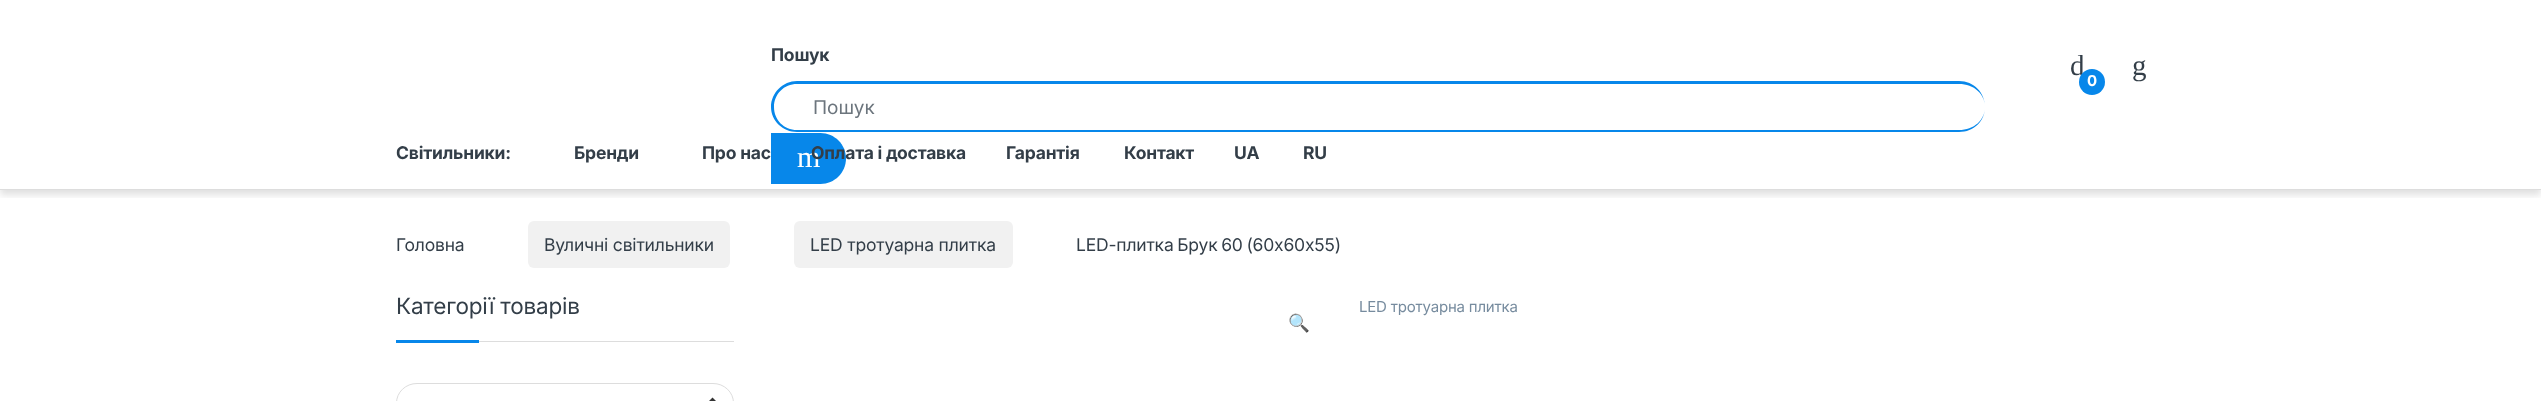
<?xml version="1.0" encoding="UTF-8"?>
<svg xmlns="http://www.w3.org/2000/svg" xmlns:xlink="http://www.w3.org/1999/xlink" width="2541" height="401">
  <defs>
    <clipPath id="clip1"><rect x="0" y="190" width="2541" height="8" /></clipPath>
  </defs>
  <rect width="100%" height="100%" fill="#ffffff" />
  <g clip-path="url(#clip1)">
    <rect y="5" width="2541" height="190" fill="#000000" fill-opacity="0.12" filter="blur(3.5px)" />
  </g>
  <rect y="189" width="2541" height="1" fill="#dddddd" />
  <path d="M 797 81 h 1162 c 15 0 26 12 26 26 c 0 14 -11 25 -26 25 h -1162 c -14 0 -26 -11 -26 -25 c 0 -14 12 -26 26 -26 z m 0 3 h 1162 c 15 0 26 10 26 23 c 0 13 -11 23 -26 23 h -1162 c -13 0 -23 -10 -23 -23 c 0 -13 10 -23 23 -23 z" fill="#0787ea" fill-rule="evenodd" />
  <path d="M 771 133 h 49.5 c 14 0 25.5 11.5 25.5 25.5 c 0 14 -11.5 25.5 -25.5 25.5 h -49.5 z" fill="#0787ea" />
  <rect x="528" y="221" width="202" height="47" rx="6" fill="#f1f1f1" />
  <rect x="794" y="221" width="219" height="47" rx="6" fill="#f1f1f1" />
  <rect x="479" y="341" width="255" height="1" fill="#dddddd" />
  <rect x="396" y="340" width="83" height="3" fill="#0787ea" />
  <image x="709" y="397" width="7" height="4" xlink:href="image1.png" />
  <rect x="396.5" y="383.5" width="337" height="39" rx="20.5" fill="none" stroke="#dddddd" />
  <text x="771" y="61" style="font-family: Inter; font-size: 17.5px; font-weight: bold; letter-spacing: -0.2px; fill: #333e48">Пошук</text>
  <text x="813" y="114" style="font-family: Inter; font-size: 19px; fill: #6c757d">Пошук</text>
  <text x="797" y="167" style="font-family: Liberation Serif; font-size: 30px; letter-spacing: -0.2px; fill: #ffffff">m</text>
  <text x="2070" y="75" style="font-family: Liberation Serif; font-size: 29px; letter-spacing: -0.2px; fill: #333e48">d</text>
  <circle cx="2092" cy="82" r="13" fill="#0787ea" />
  <text x="2087" y="86" style="font-family: Inter; font-size: 15px; font-weight: bold; letter-spacing: -0.2px; fill: #ffffff">0</text>
  <text x="2132" y="75" style="font-family: Liberation Serif; font-size: 29px; letter-spacing: -0.2px; fill: #333e48">g</text>
  <text x="396" y="159" style="font-family: Inter; font-size: 17.5px; font-weight: bold; letter-spacing: -0.2px; fill: #333e48">Світильники:</text>
  <text x="574" y="159" style="font-family: Inter; font-size: 17.5px; font-weight: bold; letter-spacing: -0.2px; fill: #333e48">Бренди</text>
  <text x="702" y="159" style="font-family: Inter; font-size: 17.5px; font-weight: bold; letter-spacing: -0.2px; fill: #333e48">Про нас</text>
  <text x="811" y="159" style="font-family: Inter; font-size: 17.5px; font-weight: bold; letter-spacing: -0.2px; fill: #333e48">Оплата і доставка</text>
  <text x="1006" y="159" style="font-family: Inter; font-size: 17.5px; font-weight: bold; letter-spacing: -0.2px; fill: #333e48">Гарантія</text>
  <text x="1124" y="159" style="font-family: Inter; font-size: 17.5px; font-weight: bold; letter-spacing: -0.2px; fill: #333e48">Контакт</text>
  <text x="1234" y="159" style="font-family: Inter; font-size: 17.5px; font-weight: bold; letter-spacing: -0.2px; fill: #333e48">UA</text>
  <text x="1303" y="159" style="font-family: Inter; font-size: 17.5px; font-weight: bold; letter-spacing: -0.2px; fill: #333e48">RU</text>
  <text x="396" y="251" style="font-family: Inter; font-size: 17.5px; letter-spacing: -0.2px; fill: #333e48">Головна</text>
  <text x="544" y="251" style="font-family: Inter; font-size: 17.5px; letter-spacing: -0.2px; fill: #333e48">Вуличні світильники</text>
  <text x="810" y="251" style="font-family: Inter; font-size: 17.5px; letter-spacing: -0.2px; fill: #333e48">LED тротуарна плитка</text>
  <text x="1076" y="251" word-spacing="-1" style="font-family: Inter; font-size: 17.5px; letter-spacing: -0.2px; fill: #333e48">LED-плитка Брук 60 (60x60x55)</text>
  <text x="396" y="314" style="font-family: Inter; font-size: 22.5px; letter-spacing: -0.2px; fill: #333e48">Категорії товарів</text>
  <text x="1359" y="312" style="font-family: Inter; font-size: 15px; letter-spacing: -0.2px; fill: #768b9e">LED тротуарна плитка</text>
  <text x="1288" y="329" style="font-family: Noto Color Emoji; font-size: 17.5px; letter-spacing: -0.2px; fill: #333e48">🔍</text>
</svg>
